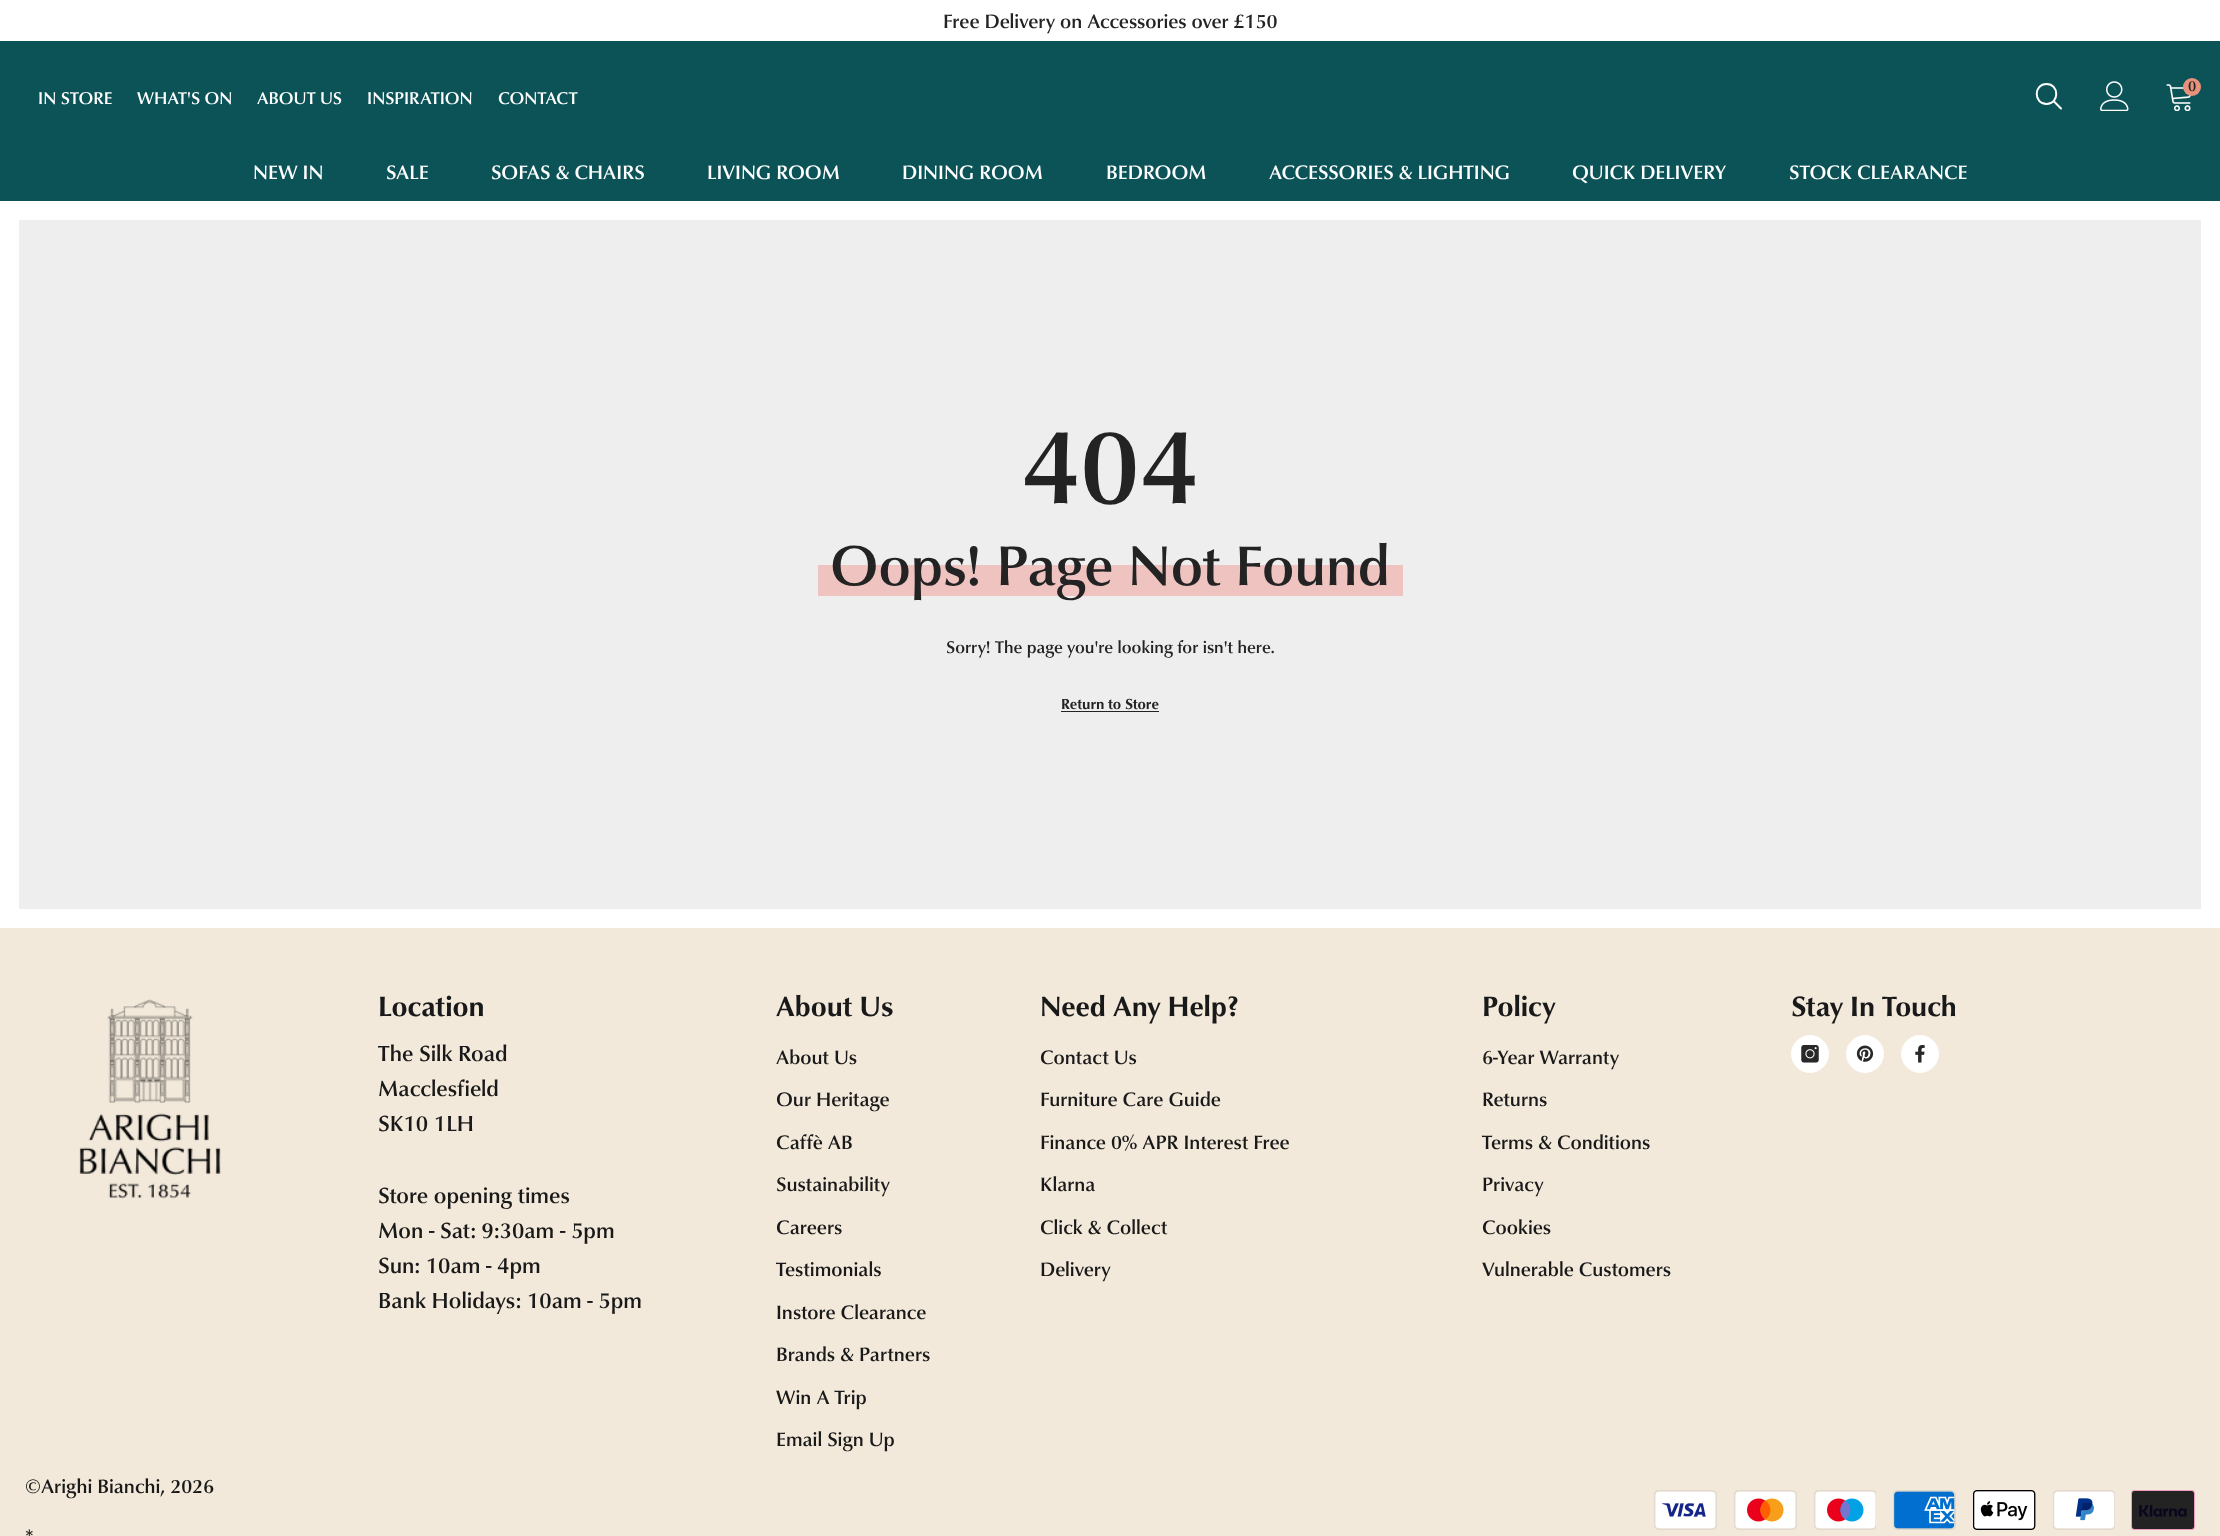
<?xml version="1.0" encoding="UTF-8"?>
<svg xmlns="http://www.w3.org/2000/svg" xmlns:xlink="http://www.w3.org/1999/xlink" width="2220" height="1536">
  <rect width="100%" height="100%" fill="#ffffff" />
  <rect y="41" width="2220" height="160" fill="#0c5358" />
  <path d="M 2046.5 84 c -13 0 -13 20 0 20 c 13 0 13 -20 0 -20 z" fill="none" stroke="#ffffff" stroke-width="2" />
  <path d="M 2054 101.5 l 7 7" fill="none" stroke="#ffffff" stroke-width="2" stroke-linecap="round" />
  <image x="2100" y="81" width="29" height="30" xlink:href="image1.png" />
  <image x="2166" y="84" width="25" height="27" xlink:href="image2.png" />
  <circle cx="2192" cy="87" r="9" fill="#e8927c" />
  <rect x="19" y="220" width="2182" height="689" fill="#eeeeee" />
  <rect x="818" y="565" width="585" height="31" fill="#efc3c0" />
  <rect x="1061" y="711" width="98" height="1" fill="#232323" />
  <rect y="928" width="2220" height="608" fill="#f2e9db" />
  <image x="79" y="999" width="142" height="200" xlink:href="image3.png" />
  <circle cx="1810" cy="1054" r="18.5" fill="#ffffff" stroke="#ffffff" />
  <image x="1801" y="1045" width="18" height="18" xlink:href="image4.png" />
  <circle cx="1865" cy="1054" r="18.5" fill="#ffffff" stroke="#ffffff" />
  <image x="1856" y="1045" width="18" height="17" xlink:href="image5.png" />
  <circle cx="1920" cy="1054" r="18.5" fill="#ffffff" stroke="#ffffff" />
  <image x="1915" y="1045" width="10" height="18" xlink:href="image6.png" />
  <image x="1654" y="1490" width="63" height="40" xlink:href="image7.png" />
  <image x="1734" y="1490" width="63" height="40" xlink:href="image8.png" />
  <image x="1814" y="1490" width="62" height="40" xlink:href="image9.png" />
  <image x="1893" y="1490" width="63" height="40" xlink:href="image10.png" />
  <image x="1973" y="1490" width="63" height="40" xlink:href="image11.png" />
  <image x="2053" y="1490" width="62" height="40" xlink:href="image12.png" />
  <image x="2131" y="1490" width="64" height="40" xlink:href="image13.png" />
  <text x="943" y="28" style="font-family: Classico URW; font-size: 20px; font-weight: 500; fill: #232323">Free Delivery on Accessories over £150</text>
  <text x="2188" y="91" style="font-family: Classico URW; font-size: 15px; font-weight: 500; fill: #232323">0</text>
  <text x="38" y="104" style="font-family: Classico URW; font-size: 17.5px; font-weight: 500; fill: #ffffff">IN STORE</text>
  <text x="137" y="104" style="font-family: Classico URW; font-size: 17.5px; font-weight: 500; fill: #ffffff">WHAT'S ON</text>
  <text x="257" y="104" style="font-family: Classico URW; font-size: 17.5px; font-weight: 500; fill: #ffffff">ABOUT US</text>
  <text x="367" y="104" style="font-family: Classico URW; font-size: 17.5px; font-weight: 500; fill: #ffffff">INSPIRATION</text>
  <text x="498" y="104" style="font-family: Classico URW; font-size: 17.5px; font-weight: 500; fill: #ffffff">CONTACT</text>
  <text x="253" y="179" style="font-family: Classico URW; font-size: 20px; font-weight: 500; fill: #ffffff">NEW IN</text>
  <text x="386" y="179" style="font-family: Classico URW; font-size: 20px; font-weight: 500; fill: #ffffff">SALE</text>
  <text x="491" y="179" style="font-family: Classico URW; font-size: 20px; font-weight: 500; fill: #ffffff">SOFAS &amp; CHAIRS</text>
  <text x="707" y="179" style="font-family: Classico URW; font-size: 20px; font-weight: 500; fill: #ffffff">LIVING ROOM</text>
  <text x="902" y="179" style="font-family: Classico URW; font-size: 20px; font-weight: 500; fill: #ffffff">DINING ROOM</text>
  <text x="1106" y="179" style="font-family: Classico URW; font-size: 20px; font-weight: 500; fill: #ffffff">BEDROOM</text>
  <text x="1269" y="179" style="font-family: Classico URW; font-size: 20px; font-weight: 500; fill: #ffffff">ACCESSORIES &amp; LIGHTING</text>
  <text x="1572" y="179" style="font-family: Classico URW; font-size: 20px; font-weight: 500; fill: #ffffff">QUICK DELIVERY</text>
  <text x="1789" y="179" style="font-family: Classico URW; font-size: 20px; font-weight: 500; fill: #ffffff">STOCK CLEARANCE</text>
  <text x="1021" y="503" style="font-family: Classico URW; font-size: 108px; font-weight: 500; fill: #232323">404</text>
  <text x="830" y="585" style="font-family: Classico URW; font-size: 57.5px; font-weight: 500; fill: #232323">Oops! Page Not Found</text>
  <text x="946" y="653" style="font-family: Classico URW; font-size: 17.5px; font-weight: 500; fill: #232323">Sorry! The page you're looking for isn't here.</text>
  <text x="1061" y="709" style="font-family: Classico URW; font-size: 15px; font-weight: bold; fill: #232323">Return to Store</text>
  <text x="378" y="1016" style="font-family: Classico URW; font-size: 28.75px; font-weight: bold; fill: #191919">Location</text>
  <text x="378" y="1061" style="font-family: Classico URW; font-size: 22.5px; font-weight: 500; fill: #191919">The Silk Road</text>
  <text x="378" y="1096" style="font-family: Classico URW; font-size: 22.5px; font-weight: 500; fill: #191919">Macclesfield</text>
  <text x="378" y="1131" style="font-family: Classico URW; font-size: 22.5px; font-weight: 500; fill: #191919">SK10 1LH</text>
  <text x="378" y="1203" style="font-family: Classico URW; font-size: 22.5px; font-weight: 500; fill: #191919">Store opening times</text>
  <text x="378" y="1238" style="font-family: Classico URW; font-size: 22.5px; font-weight: 500; fill: #191919">Mon - Sat: 9:30am - 5pm</text>
  <text x="378" y="1273" style="font-family: Classico URW; font-size: 22.5px; font-weight: 500; fill: #191919">Sun: 10am - 4pm</text>
  <text x="378" y="1308" style="font-family: Classico URW; font-size: 22.5px; font-weight: 500; fill: #191919">Bank Holidays: 10am - 5pm</text>
  <text x="776" y="1016" style="font-family: Classico URW; font-size: 28.75px; font-weight: bold; fill: #191919">About Us</text>
  <text x="776" y="1064" style="font-family: Classico URW; font-size: 20px; font-weight: 500; fill: #191919">About Us</text>
  <text x="776" y="1106" style="font-family: Classico URW; font-size: 20px; font-weight: 500; fill: #191919">Our Heritage</text>
  <text x="776" y="1149" style="font-family: Classico URW; font-size: 20px; font-weight: 500; fill: #191919">Caffè AB</text>
  <text x="776" y="1191" style="font-family: Classico URW; font-size: 20px; font-weight: 500; fill: #191919">Sustainability</text>
  <text x="776" y="1234" style="font-family: Classico URW; font-size: 20px; font-weight: 500; fill: #191919">Careers</text>
  <text x="776" y="1276" style="font-family: Classico URW; font-size: 20px; font-weight: 500; fill: #191919">Testimonials</text>
  <text x="776" y="1319" style="font-family: Classico URW; font-size: 20px; font-weight: 500; fill: #191919">Instore Clearance</text>
  <text x="776" y="1361" style="font-family: Classico URW; font-size: 20px; font-weight: 500; fill: #191919">Brands &amp; Partners</text>
  <text x="776" y="1404" style="font-family: Classico URW; font-size: 20px; font-weight: 500; fill: #191919">Win A Trip</text>
  <text x="776" y="1446" style="font-family: Classico URW; font-size: 20px; font-weight: 500; fill: #191919">Email Sign Up</text>
  <text x="1040" y="1016" style="font-family: Classico URW; font-size: 28.75px; font-weight: bold; fill: #191919">Need Any Help?</text>
  <text x="1040" y="1064" style="font-family: Classico URW; font-size: 20px; font-weight: 500; fill: #191919">Contact Us</text>
  <text x="1040" y="1106" style="font-family: Classico URW; font-size: 20px; font-weight: 500; fill: #191919">Furniture Care Guide</text>
  <text x="1040" y="1149" style="font-family: Classico URW; font-size: 20px; font-weight: 500; fill: #191919">Finance 0% APR Interest Free</text>
  <text x="1040" y="1191" style="font-family: Classico URW; font-size: 20px; font-weight: 500; fill: #191919">Klarna</text>
  <text x="1040" y="1234" style="font-family: Classico URW; font-size: 20px; font-weight: 500; fill: #191919">Click &amp; Collect</text>
  <text x="1040" y="1276" style="font-family: Classico URW; font-size: 20px; font-weight: 500; fill: #191919">Delivery</text>
  <text x="1482" y="1016" style="font-family: Classico URW; font-size: 28.75px; font-weight: bold; fill: #191919">Policy</text>
  <text x="1482" y="1064" style="font-family: Classico URW; font-size: 20px; font-weight: 500; fill: #191919">6-Year Warranty</text>
  <text x="1482" y="1106" style="font-family: Classico URW; font-size: 20px; font-weight: 500; fill: #191919">Returns</text>
  <text x="1482" y="1149" style="font-family: Classico URW; font-size: 20px; font-weight: 500; fill: #191919">Terms &amp; Conditions</text>
  <text x="1482" y="1191" style="font-family: Classico URW; font-size: 20px; font-weight: 500; fill: #191919">Privacy</text>
  <text x="1482" y="1234" style="font-family: Classico URW; font-size: 20px; font-weight: 500; fill: #191919">Cookies</text>
  <text x="1482" y="1276" style="font-family: Classico URW; font-size: 20px; font-weight: 500; fill: #191919">Vulnerable Customers</text>
  <text x="1791" y="1016" style="font-family: Classico URW; font-size: 28.75px; font-weight: bold; fill: #191919">Stay In Touch</text>
  <text x="25" y="1493" style="font-family: Classico URW; font-size: 20px; font-weight: 500; fill: #191919">©Arighi Bianchi, 2026</text>
  <text x="25" y="1543" style="font-family: Classico URW; font-size: 20px; font-weight: 500; fill: #191919">*</text>
</svg>
